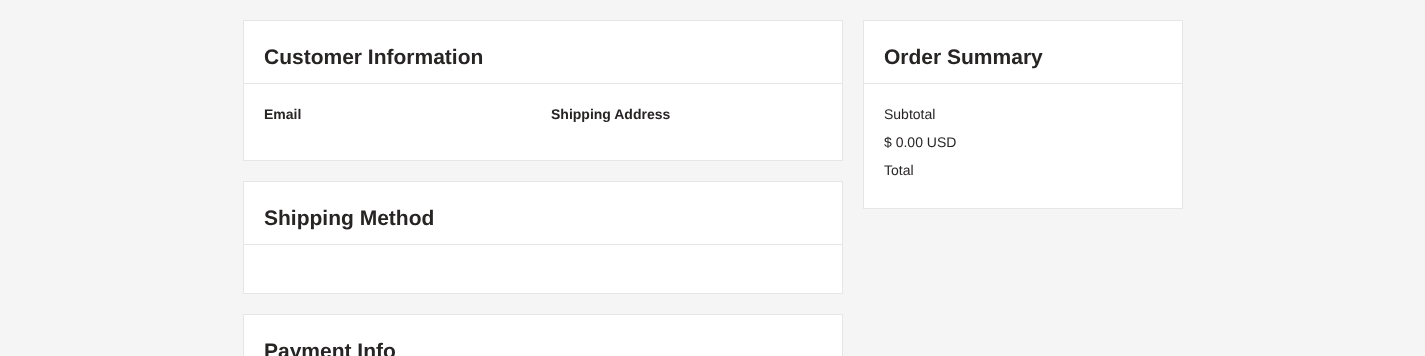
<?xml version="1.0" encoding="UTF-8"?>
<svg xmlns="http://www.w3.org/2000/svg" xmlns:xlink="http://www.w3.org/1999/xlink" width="1425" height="356">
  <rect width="100%" height="100%" fill="#f5f5f5" />
  <rect x="243.5" y="20.5" width="599" height="63" fill="#ffffff" stroke="#e6e6e6" />
  <rect x="244" y="84" width="598" height="76" fill="#ffffff" />
  <rect x="842" y="84" width="1" height="77" fill="#e6e6e6" />
  <rect x="243" y="160" width="600" height="1" fill="#e6e6e6" />
  <rect x="243" y="84" width="1" height="77" fill="#e6e6e6" />
  <rect x="243.5" y="181.5" width="599" height="63" fill="#ffffff" stroke="#e6e6e6" />
  <rect x="244" y="245" width="598" height="48" fill="#ffffff" />
  <rect x="842" y="245" width="1" height="49" fill="#e6e6e6" />
  <rect x="243" y="293" width="600" height="1" fill="#e6e6e6" />
  <rect x="243" y="245" width="1" height="49" fill="#e6e6e6" />
  <rect x="243.5" y="314.5" width="599" height="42" fill="#ffffff" stroke="#e6e6e6" />
  <rect x="863.5" y="20.5" width="319" height="63" fill="#ffffff" stroke="#e6e6e6" />
  <rect x="864" y="84" width="318" height="124" fill="#ffffff" />
  <rect x="1182" y="84" width="1" height="125" fill="#e6e6e6" />
  <rect x="863" y="208" width="320" height="1" fill="#e6e6e6" />
  <rect x="863" y="84" width="1" height="125" fill="#e6e6e6" />
  <text x="264" y="64" style="font-family: Liberation Sans; font-size: 21px; font-weight: bold; fill: #272424">Customer Information</text>
  <text x="264" y="119" style="font-family: Liberation Sans; font-size: 14px; font-weight: bold; fill: #272424">Email</text>
  <text x="551" y="119" style="font-family: Liberation Sans; font-size: 14px; font-weight: bold; fill: #272424">Shipping Address</text>
  <text x="264" y="225" style="font-family: Liberation Sans; font-size: 21px; font-weight: bold; fill: #272424">Shipping Method</text>
  <text x="264" y="358" style="font-family: Liberation Sans; font-size: 21px; font-weight: bold; fill: #272424">Payment Info</text>
  <text x="884" y="64" style="font-family: Liberation Sans; font-size: 21px; font-weight: bold; fill: #272424">Order Summary</text>
  <text x="884" y="119" style="font-family: Liberation Sans; font-size: 14px; fill: #272424">Subtotal</text>
  <text x="884" y="147" style="font-family: Liberation Sans; font-size: 14px; fill: #272424">$ 0.00 USD</text>
  <text x="884" y="175" style="font-family: Liberation Sans; font-size: 14px; fill: #272424">Total</text>
</svg>
